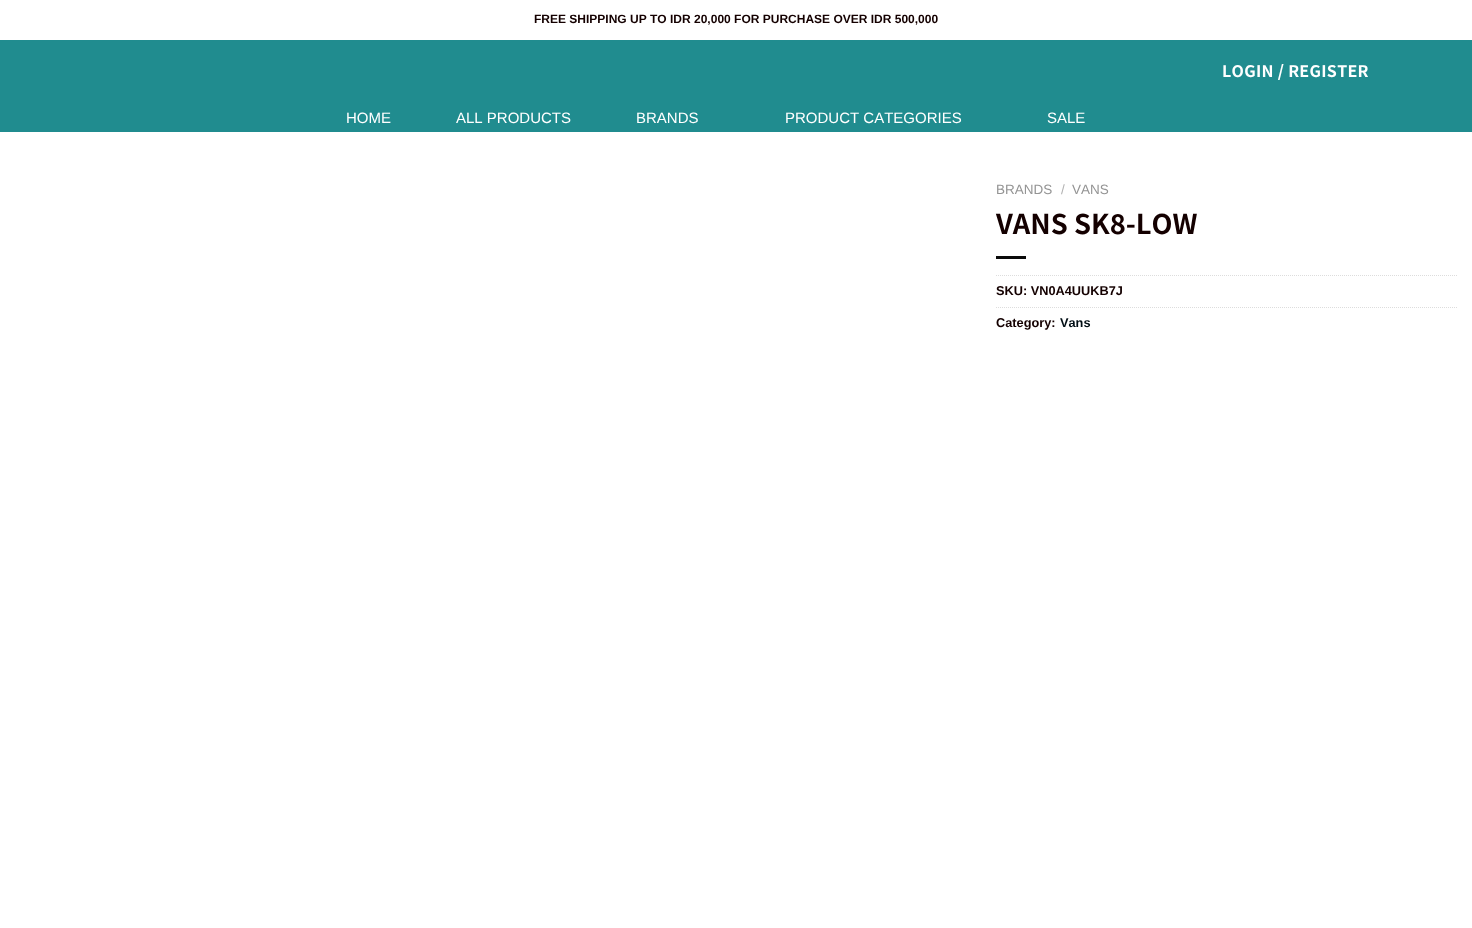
<?xml version="1.0" encoding="UTF-8"?>
<svg xmlns="http://www.w3.org/2000/svg" xmlns:xlink="http://www.w3.org/1999/xlink" width="1472" height="928">
  <style>*{font-kerning:none!important;font-variant-ligatures:none!important}</style>
  <rect width="100%" height="100%" fill="#ffffff" />
  <rect y="40" width="1472" height="92" fill="#208c8f" />
  <rect x="996" y="256" width="30" height="3" fill="#0a0a0a" />
  <path d="M 996 275.5 h 461" fill="none" stroke="#dddddd" stroke-dasharray="1 1" />
  <path d="M 996 307.5 h 461" fill="none" stroke="#dddddd" stroke-dasharray="1 1" />
  <text x="534" y="23" style="font-family: Liberation Sans; font-size: 12px; font-weight: bold; fill: #140000">FREE SHIPPING UP TO IDR 20,000 FOR PURCHASE OVER IDR 500,000</text>
  <text x="1222" y="77" style="font-family: Noto Sans TC; font-size: 16px; font-weight: bold; letter-spacing: 0.3px; fill: #ffffff">LOGIN / REGISTER</text>
  <text x="346" y="123" style="font-family: Liberation Sans; font-size: 15px; fill: #ffffff">HOME</text>
  <text x="456" y="123" style="font-family: Liberation Sans; font-size: 15px; fill: #ffffff">ALL PRODUCTS</text>
  <text x="636" y="123" style="font-family: Liberation Sans; font-size: 15px; fill: #ffffff">BRANDS</text>
  <text x="785" y="123" style="font-family: Liberation Sans; font-size: 15px; fill: #ffffff">PRODUCT CATEGORIES</text>
  <text x="1047" y="123" style="font-family: Liberation Sans; font-size: 15px; fill: #ffffff">SALE</text>
  <text x="996" y="194" style="font-family: Liberation Sans; font-size: 13.5px; fill: #949494">BRANDS</text>
  <text x="1061" y="194" style="font-family: Liberation Sans; font-size: 13.5px; fill: #b2b2b2">/</text>
  <text x="1072" y="194" style="font-family: Liberation Sans; font-size: 13.5px; fill: #949494">VANS</text>
  <text x="996" y="234" style="font-family: Noto Sans TC; font-size: 27.25px; font-weight: bold; fill: #140000">VANS SK8-LOW</text>
  <text x="996" y="295" style="font-family: Liberation Sans; font-size: 12.75px; font-weight: bold; fill: #140000">SKU: VN0A4UUKB7J</text>
  <text x="996" y="327" style="font-family: Liberation Sans; font-size: 12.75px; font-weight: bold; fill: #140000">Category:</text>
  <text x="1060" y="327" style="font-family: Liberation Sans; font-size: 12.75px; font-weight: bold; fill: #000d14">Vans</text>
</svg>
